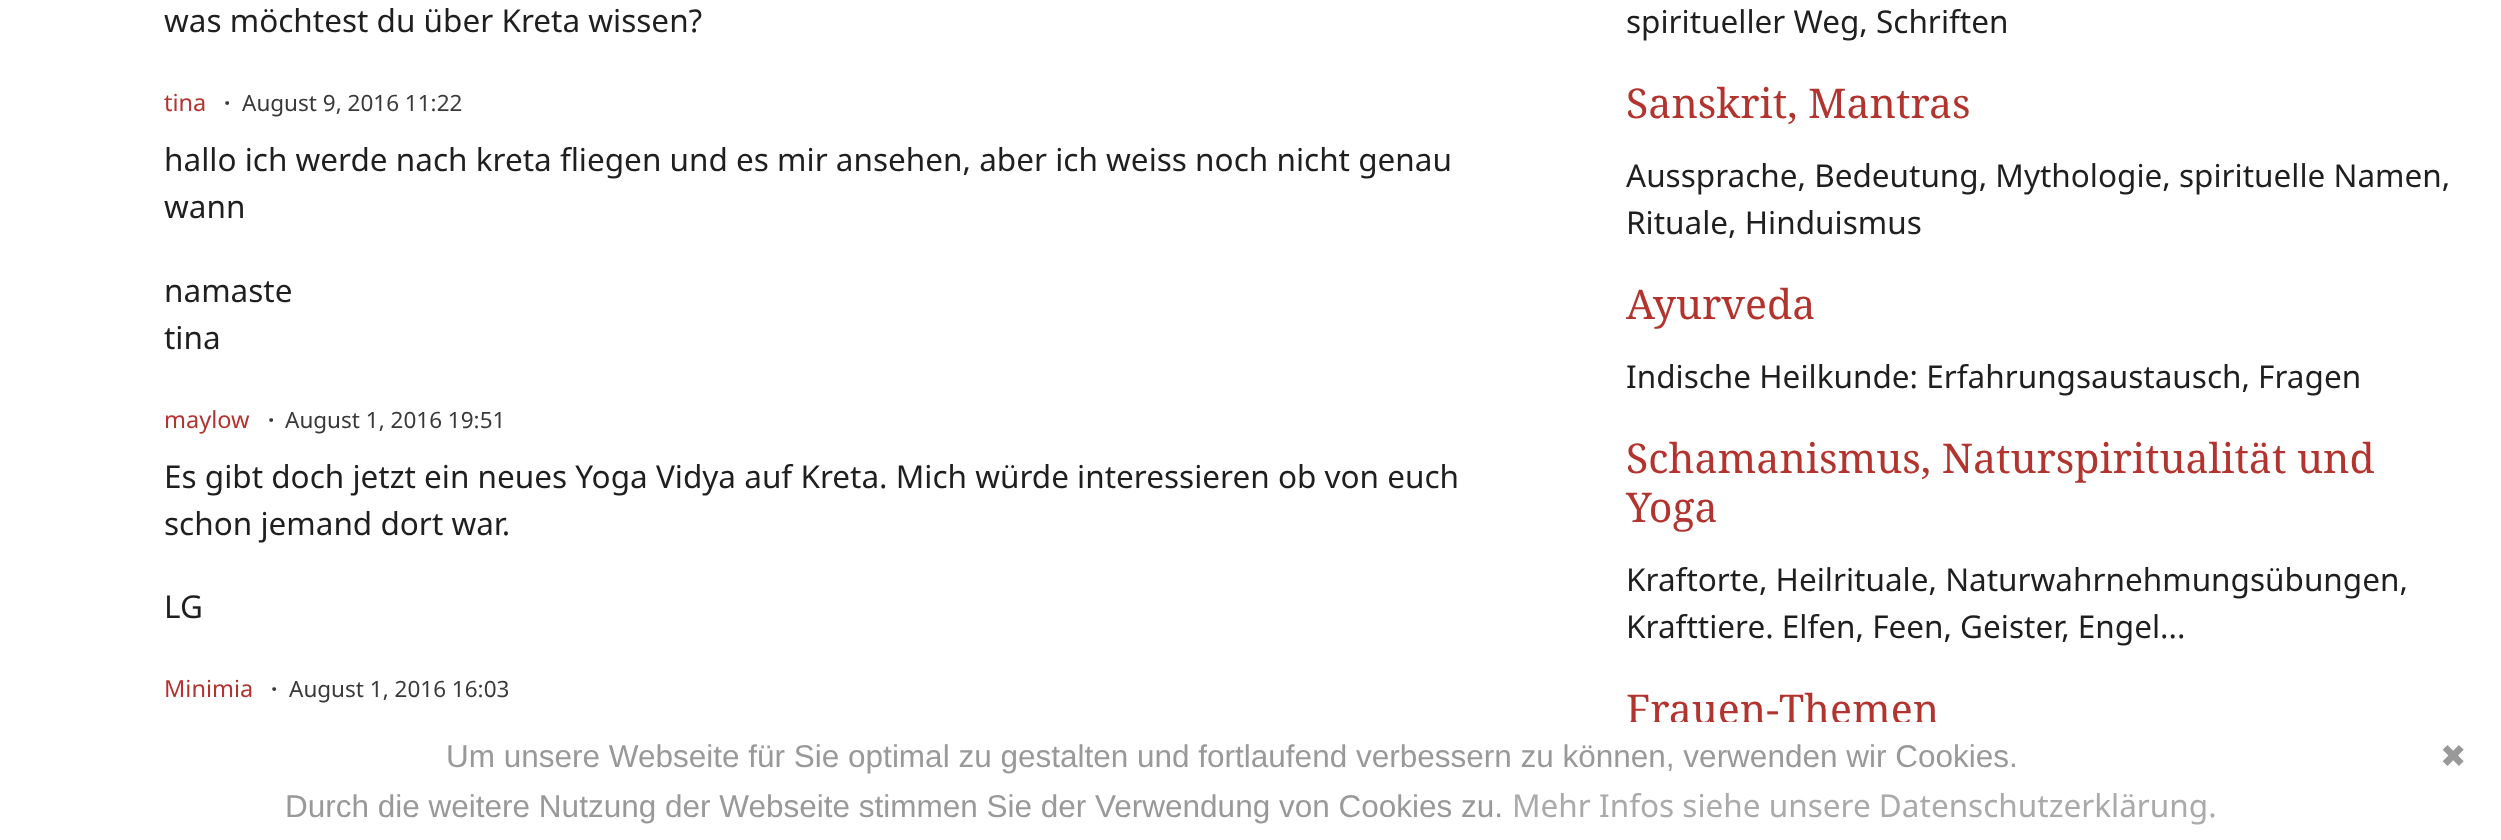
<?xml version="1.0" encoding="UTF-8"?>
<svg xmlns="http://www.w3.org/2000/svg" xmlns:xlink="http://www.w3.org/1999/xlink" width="2501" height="840">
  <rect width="100%" height="100%" fill="#ffffff" />
  <text x="164" y="32" style="font-family: Noto Sans; font-size: 31.5px; fill: #1f1f1f">was möchtest du über Kreta wissen?</text>
  <text x="164" y="111" style="font-family: Noto Sans; font-size: 23.5px; fill: #b3342e">tina</text>
  <text x="224" y="111" style="font-family: Noto Sans; font-size: 22.5px; font-weight: bold; fill: #393939">·</text>
  <text x="242" y="111" style="font-family: Noto Sans; font-size: 22.5px; fill: #393939">August 9, 2016 11:22</text>
  <text x="164" y="171" style="font-family: Noto Sans; font-size: 31.5px; fill: #1f1f1f">hallo ich werde nach kreta fliegen und es mir ansehen, aber ich weiss noch nicht genau</text>
  <text x="164" y="218" style="font-family: Noto Sans; font-size: 31.5px; fill: #1f1f1f">wann</text>
  <text x="164" y="302" style="font-family: Noto Sans; font-size: 31.5px; fill: #1f1f1f">namaste</text>
  <text x="164" y="349" style="font-family: Noto Sans; font-size: 31.5px; fill: #1f1f1f">tina</text>
  <text x="164" y="428" style="font-family: Noto Sans; font-size: 23.5px; fill: #b3342e">maylow</text>
  <text x="268" y="428" style="font-family: Noto Sans; font-size: 22.5px; font-weight: bold; fill: #393939">·</text>
  <text x="285" y="428" style="font-family: Noto Sans; font-size: 22.5px; fill: #393939">August 1, 2016 19:51</text>
  <text x="164" y="488" style="font-family: Noto Sans; font-size: 31.5px; fill: #1f1f1f">Es gibt doch jetzt ein neues Yoga Vidya auf Kreta. Mich würde interessieren ob von euch</text>
  <text x="164" y="535" style="font-family: Noto Sans; font-size: 31.5px; fill: #1f1f1f">schon jemand dort war.</text>
  <text x="164" y="618" style="font-family: Noto Sans; font-size: 31.5px; fill: #1f1f1f">LG</text>
  <text x="164" y="697" style="font-family: Noto Sans; font-size: 23.5px; fill: #b3342e">Minimia</text>
  <text x="271" y="697" style="font-family: Noto Sans; font-size: 22.5px; font-weight: bold; fill: #393939">·</text>
  <text x="289" y="697" style="font-family: Noto Sans; font-size: 22.5px; fill: #393939">August 1, 2016 16:03</text>
  <text x="1626" y="33" style="font-family: Noto Sans; font-size: 31.5px; fill: #1f1f1f">spiritueller Weg, Schriften</text>
  <text x="1626" y="118" style="font-family: Noto Serif; font-size: 41px; fill: #b3342e">Sanskrit, Mantras</text>
  <text x="1626" y="187" style="font-family: Noto Sans; font-size: 31.5px; fill: #1f1f1f">Aussprache, Bedeutung, Mythologie, spirituelle Namen,</text>
  <text x="1626" y="234" style="font-family: Noto Sans; font-size: 31.5px; fill: #1f1f1f">Rituale, Hinduismus</text>
  <text x="1626" y="319" style="font-family: Noto Serif; font-size: 41px; fill: #b3342e">Ayurveda</text>
  <text x="1626" y="388" style="font-family: Noto Sans; font-size: 31.5px; fill: #1f1f1f">Indische Heilkunde: Erfahrungsaustausch, Fragen</text>
  <text x="1626" y="473" style="font-family: Noto Serif; font-size: 41px; fill: #b3342e">Schamanismus, Naturspiritualität und</text>
  <text x="1626" y="522" style="font-family: Noto Serif; font-size: 41px; fill: #b3342e">Yoga</text>
  <text x="1626" y="591" style="font-family: Noto Sans; font-size: 31.5px; fill: #1f1f1f">Kraftorte, Heilrituale, Naturwahrnehmungsübungen,</text>
  <text x="1626" y="638" style="font-family: Noto Sans; font-size: 31.5px; fill: #1f1f1f">Krafttiere. Elfen, Feen, Geister, Engel...</text>
  <text x="1626" y="724" style="font-family: Noto Serif; font-size: 41px; fill: #b3342e">Frauen-Themen</text>
  <rect x="1627" y="722" width="311" height="3" fill="#ffffff" />
  <text x="446" y="767" style="font-family: Liberation Sans; font-size: 31.5px; fill: #999999">Um unsere Webseite für Sie optimal zu gestalten und fortlaufend verbessern zu können, verwenden wir Cookies.</text>
  <text x="2440" y="767" style="font-family: DejaVu Sans; font-size: 31.5px; fill: #999999">✖</text>
  <text x="285" y="817" style="font-family: Liberation Sans; font-size: 31.5px; fill: #999999">Durch die weitere Nutzung der Webseite stimmen Sie der Verwendung von Cookies zu.</text>
  <text x="1512" y="817" style="font-family: Noto Sans; font-size: 31.5px; fill: #aaaaaa">Mehr Infos siehe unsere Datenschutzerklärung.</text>
</svg>
